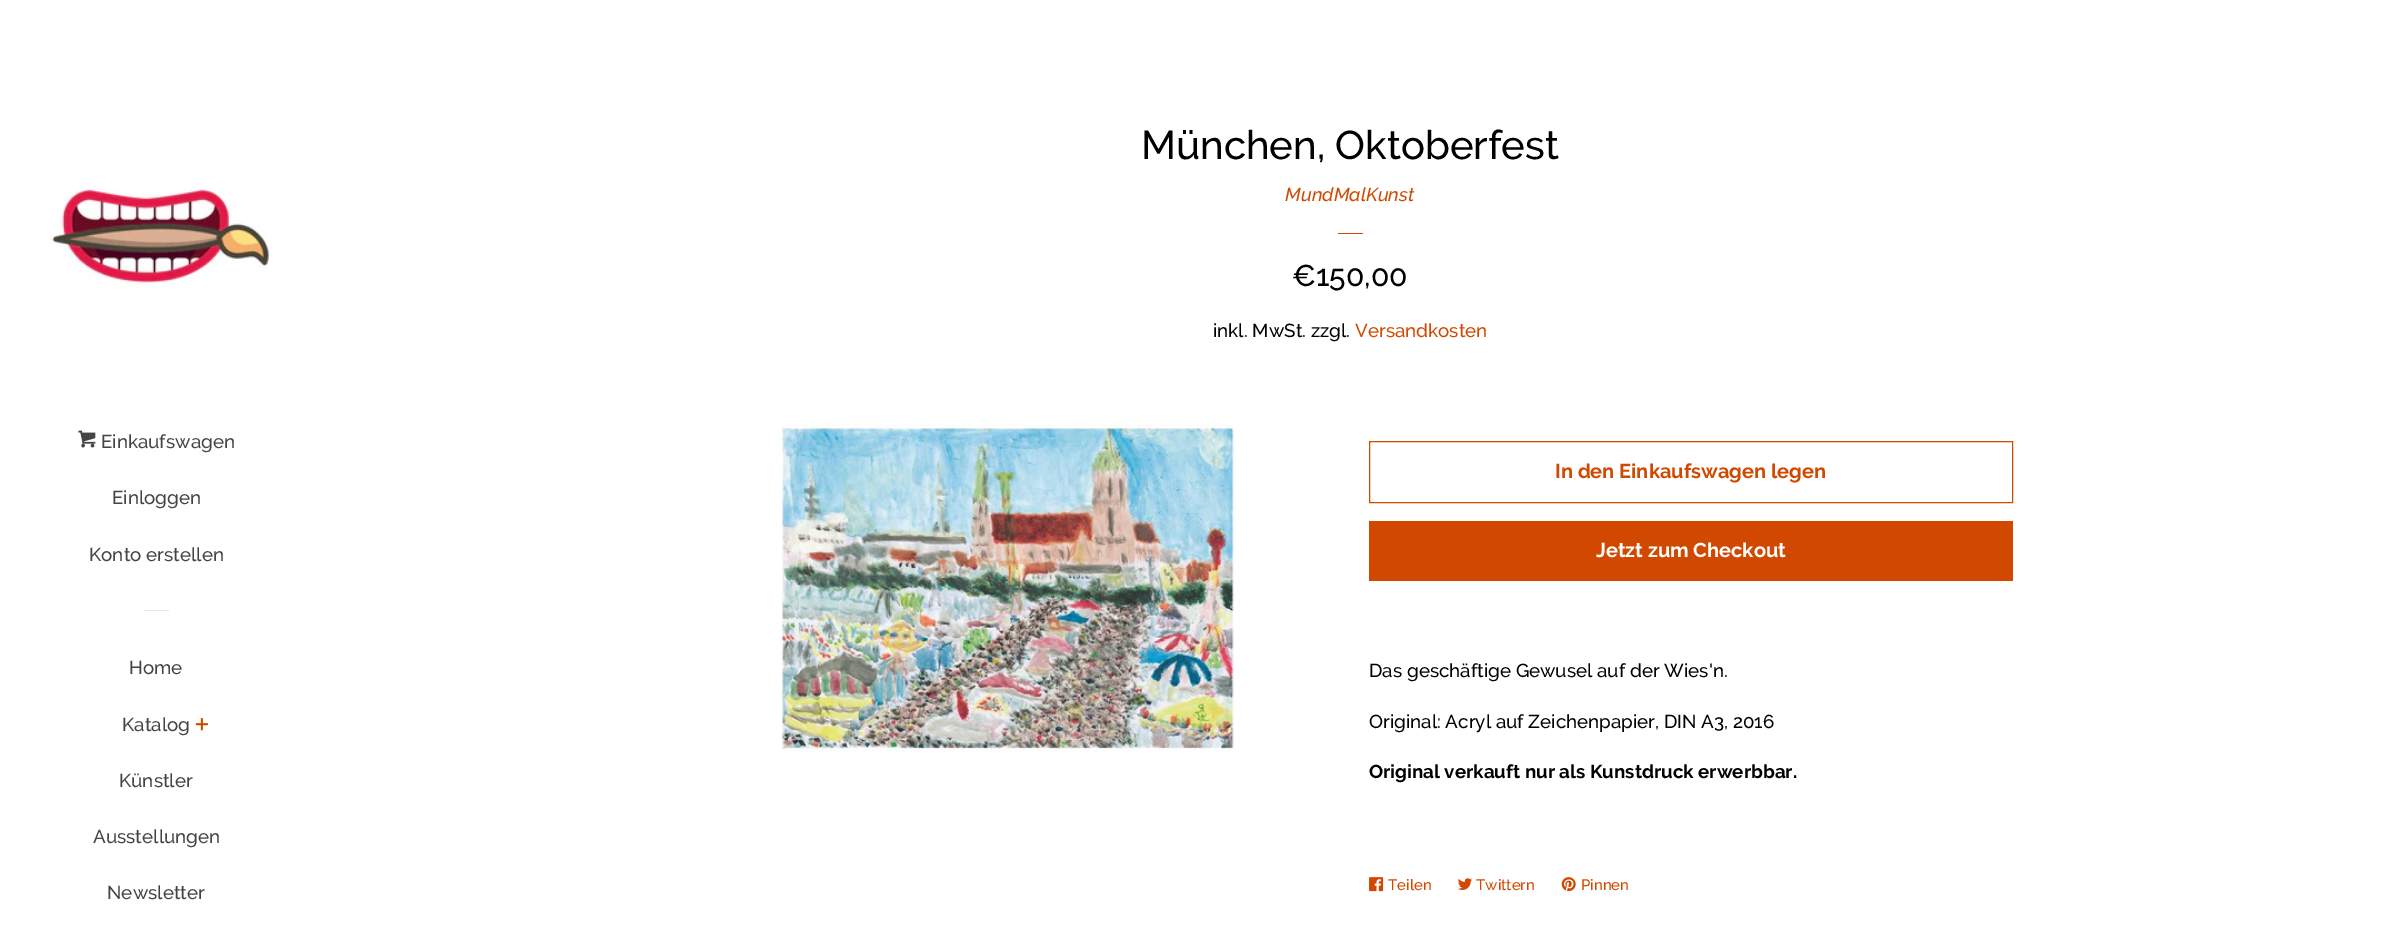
%!PS-Adobe-3.0
%%BoundingBox: 0 0 2387 952
%%LanguageLevel: 3
%%Pages: 1
%%EndComments
%%BeginProlog
/setink { 3 { 255 div 3 1 roll } repeat setrgbcolor } def
/usefont { [ exch dup neg 0 0 3 -1 roll 0 0 ] selectfont } def
/drawtext { setink usefont moveto show } def
/fillbox { setink rectfill } def
/drawimage { 5 dict begin { /h /w /y /x /name } { exch def } forall
  gsave x y translate w h scale
  w h 8 [w 0 0 h 0 0] name (r) file false 3 colorimage grestore end } def
%%EndProlog
%%BeginSetup
<< /PageSize [2387 952] >> setpagedevice
%%EndSetup
%%Page: 1 1
0 952 translate 1 -1 scale
4 setmiterlimit
0 0 2387 952 255 255 255 fillbox
(assets/img1.rgb) 50 188 219 101 drawimage
(assets/img2.rgb) 78 430 18 18 drawimage
(Einkaufswagen) 101 448 /Raleway-Medium 18.75 68 68 68 drawtext
(Einloggen) 112 504 /Raleway-Medium 18.75 68 68 68 drawtext
(Konto erstellen) 89 561 /Raleway-Medium 18.75 68 68 68 drawtext
144 610 25 1 230 230 230 fillbox
(Home) 129 674 /Raleway-Medium 18.75 68 68 68 drawtext
(Katalog) 122 731 /Raleway-Medium 18.75 68 68 68 drawtext
(assets/img3.rgb) 195 718 13 13 drawimage
(Künstler) 119 787 /Raleway-Medium 18.75 68 68 68 drawtext
(Ausstellungen) 93 843 /Raleway-Medium 18.75 68 68 68 drawtext
(Newsletter) 107 899 /Raleway-Medium 18.75 68 68 68 drawtext
(München, Oktoberfest) 1141 159 /Raleway-Medium 40 0 0 0 drawtext
(MundMalKunst) 1285 201 /Raleway-MediumItalic 18.75 209 72 0 drawtext
1338 233 25 1 209 72 0 fillbox
(€150,00) 1292 286 /Raleway-Medium 30 0 0 0 drawtext
(inkl. MwSt. zzgl.) 1213 337 /Raleway-Medium 18.75 0 0 0 drawtext
(Versandkosten) 1355 337 /Raleway-Medium 18.75 209 72 0 drawtext
(assets/img4.rgb) 780 422 455 330 drawimage
1369.5 441.5 643 61 rectstroke
(In den Einkaufswagen legen) 1555 478 /Raleway-Bold 20 209 72 0 drawtext
1369 521 644 60 209 72 0 fillbox
(Jetzt zum Checkout) 1596 557 /Raleway-Bold 20 255 255 255 drawtext
(Das geschäftige Gewusel auf der Wies'n.) 1369 677 /Raleway-Medium 18.75 0 0 0 drawtext
(Original: Acryl auf Zeichenpapier, DIN A3, 2016) 1369 728 /Raleway-Medium 18.75 0 0 0 drawtext
(Original verkauft nur als Kunstdruck erwerbbar.) 1369 778 /Raleway-Bold 18.75 0 0 0 drawtext
(assets/img5.rgb) 1369 877 15 15 drawimage
(Teilen) 1388 890 /Raleway-Medium 15 209 72 0 drawtext
(assets/img6.rgb) 1458 878 14 12 drawimage
(Twittern) 1476 890 /Raleway-Medium 15 209 72 0 drawtext
(assets/img7.rgb) 1561 877 15 15 drawimage
(Pinnen) 1581 890 /Raleway-Medium 15 209 72 0 drawtext
showpage
%%EOF
